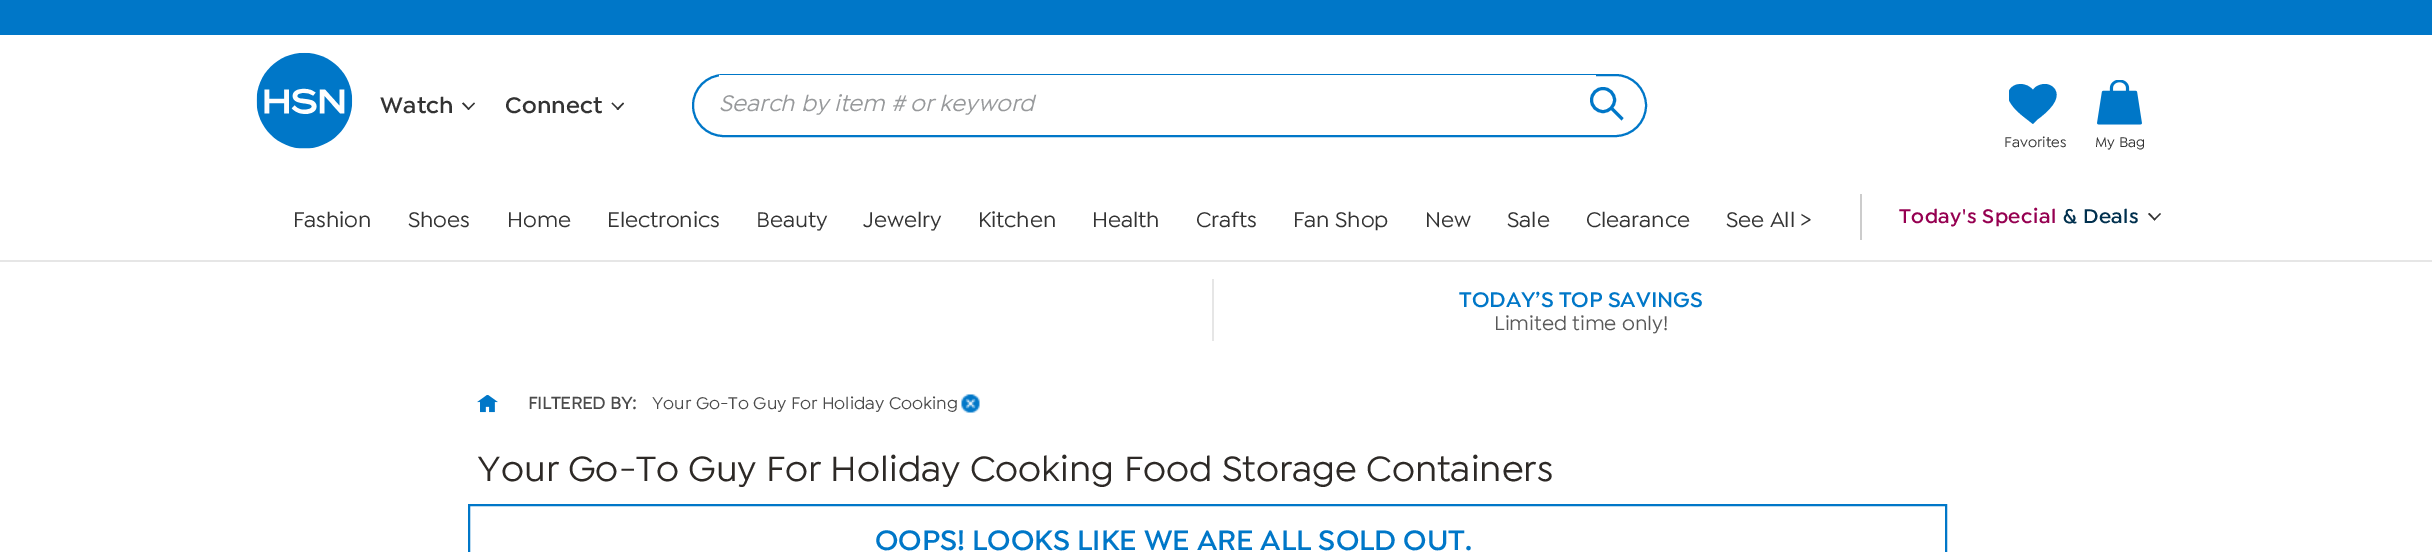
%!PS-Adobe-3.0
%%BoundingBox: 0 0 2432 552
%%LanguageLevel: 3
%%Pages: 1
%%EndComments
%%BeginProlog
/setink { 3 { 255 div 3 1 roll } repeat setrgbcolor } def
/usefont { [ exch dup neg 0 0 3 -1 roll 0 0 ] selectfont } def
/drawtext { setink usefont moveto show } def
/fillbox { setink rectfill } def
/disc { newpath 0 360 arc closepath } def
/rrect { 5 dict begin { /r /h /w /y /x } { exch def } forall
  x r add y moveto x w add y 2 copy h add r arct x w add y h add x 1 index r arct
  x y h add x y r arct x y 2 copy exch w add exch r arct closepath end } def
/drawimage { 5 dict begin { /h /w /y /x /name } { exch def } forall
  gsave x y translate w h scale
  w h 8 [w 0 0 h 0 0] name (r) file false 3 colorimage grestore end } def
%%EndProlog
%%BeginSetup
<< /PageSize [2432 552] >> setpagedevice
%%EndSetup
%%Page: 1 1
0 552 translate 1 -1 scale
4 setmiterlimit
0 0 2432 552 255 255 255 fillbox
0 0 2432 35 0 119 200 fillbox
(assets/img1.rgb) 256 52 97 97 drawimage
/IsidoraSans-SemiBold 24 usefont
51 51 51 setink
380 113 moveto 0.25 0 (Watch) ashow
474 102.5 moveto 475 103.5 lineto 468.5 110 lineto 467.5 109 lineto closepath fill
463.5 102.5 moveto 469.5 109 lineto 468.5 110 lineto 462 103.5 lineto closepath fill
505 113 moveto 0.25 0 (Connect) ashow
623 102.5 moveto 624 103.5 lineto 618 110 lineto 616.5 109 lineto closepath fill
612.5 102.5 moveto 619 109 lineto 618 110 lineto 611.5 103.5 lineto closepath fill
0 119 200 setink
2 setlinewidth
693 75 953 61 30.5 rrect stroke
719 75 877 2 255 255 255 fillbox
(Search by item # or keyword) 719 111 /IsidoraSans-MediumItalic 24 151 153 155 drawtext
0 119 200 setink
3 setlinewidth
1603 100 11.5 disc stroke
1613 107.5 moveto 1623.5 118 lineto 1621.5 120.5 lineto 1611 110 lineto closepath fill
gsave
2009 84 48 41 rectclip
2045 84 moveto 2041 84 2035 86 2033 90 curveto 2024 79 2004 84 2009 100 curveto 2012 107 2019 113 2024 117 curveto 2033 124 lineto 2038 119 lineto 2046 113 2063 99 2054 88 curveto 2052 86 2049 84 2045 84 curveto closepath eofill
grestore
(Favorites) 2004 147 /IsidoraSans-Medium 15 51 51 51 drawtext
(assets/img2.rgb) 2097 80 45 45 drawimage
(My Bag) 2095 147 /IsidoraSans-Medium 15 51 51 51 drawtext
/IsidoraSans-Medium 22.5 usefont
293 227 moveto -0.1 0 (Fashion) ashow
408 227 moveto -0.1 0 (Shoes) ashow
507 227 moveto -0.1 0 (Home) ashow
607 227 moveto -0.1 0 (Electronics) ashow
756 227 moveto -0.1 0 (Beauty) ashow
863 227 moveto -0.1 0 (Jewelry) ashow
978 227 moveto -0.1 0 (Kitchen) ashow
1092 227 moveto -0.1 0 (Health) ashow
1196 227 moveto -0.1 0 (Crafts) ashow
1293 227 moveto -0.1 0 (Fan Shop) ashow
1425 227 moveto -0.1 0 (New) ashow
1507 227 moveto -0.1 0 (Sale) ashow
1586 227 moveto -0.1 0 (Clearance) ashow
1726 227 moveto -0.1 0 (See All >) ashow
1860 194 2 46 204 204 204 fillbox
/IsidoraSans-SemiBold 21 usefont
150 0 81 setink
1899 223 moveto 0.5 0 (Today's Special) ashow
0 48 78 setink
2063 223 moveto 0.5 0 (& Deals) ashow
51 51 51 setink
2160 213 moveto 2161 214 lineto 2154.5 220.5 lineto 2153.5 219.5 lineto closepath fill
2149.5 213 moveto 2155.5 219.5 lineto 2154.5 220.5 lineto 2148 214 lineto closepath fill
0 260 2432 2 230 230 230 fillbox
1212 279 2 62 230 230 230 fillbox
(TODAY’S TOP SAVINGS) 1459 307 /IsidoraSans-SemiBold 22.5 0 119 200 drawtext
(Limited time only!) 1494 330 /IsidoraSans-Medium 21 89 89 89 drawtext
(assets/img3.rgb) 477 395 21 18 drawimage
(FILTERED BY:) 528 409 /IsidoraSans-Bold 18 75 75 75 drawtext
(assets/img4.rgb) 961 394 19 19 drawimage
(Your Go-To Guy For Holiday Cooking) 652 409 /IsidoraSans-Medium 18 75 75 75 drawtext
(Your Go-To Guy For Holiday Cooking Food Storage Containers) 477 481 /IsidoraSans-Medium 37.5 45 41 38 drawtext
0 119 200 setink
2 setlinewidth
469 505 1477 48 rectstroke
(OOPS! LOOKS LIKE WE ARE ALL SOLD OUT.) 875 550 /IsidoraSans-SemiBold 30 0 119 200 drawtext
showpage
%%EOF
